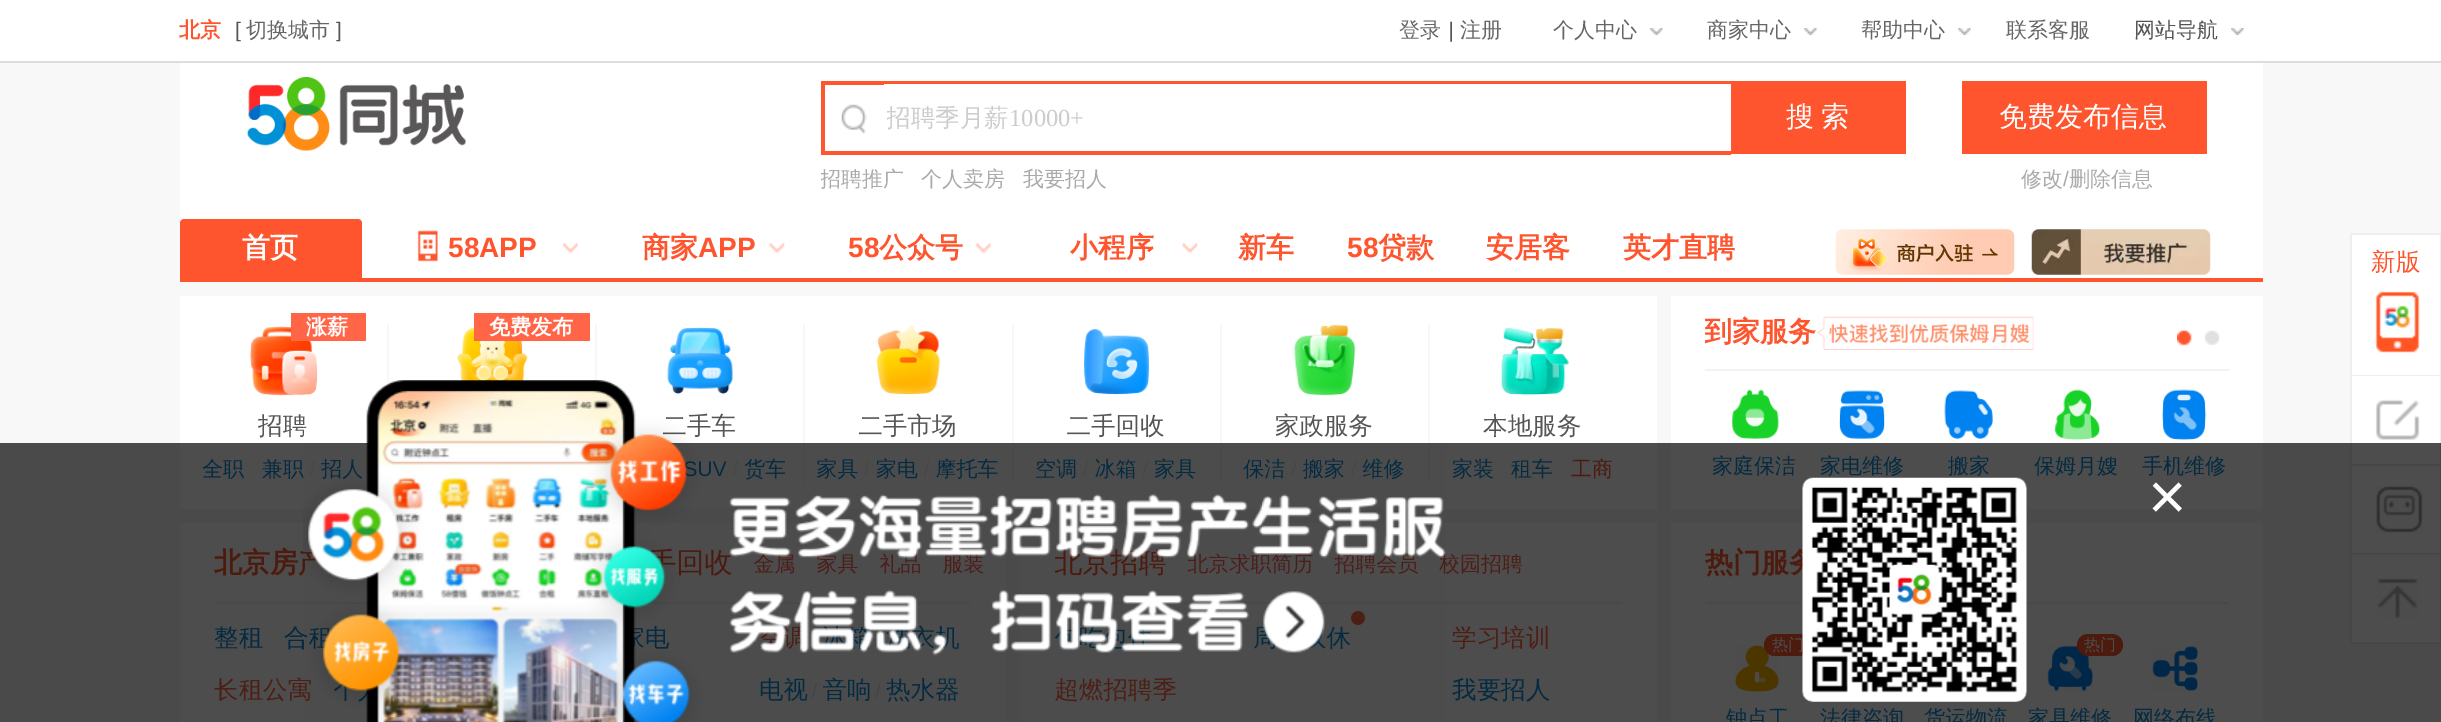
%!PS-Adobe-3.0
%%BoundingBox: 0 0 2441 722
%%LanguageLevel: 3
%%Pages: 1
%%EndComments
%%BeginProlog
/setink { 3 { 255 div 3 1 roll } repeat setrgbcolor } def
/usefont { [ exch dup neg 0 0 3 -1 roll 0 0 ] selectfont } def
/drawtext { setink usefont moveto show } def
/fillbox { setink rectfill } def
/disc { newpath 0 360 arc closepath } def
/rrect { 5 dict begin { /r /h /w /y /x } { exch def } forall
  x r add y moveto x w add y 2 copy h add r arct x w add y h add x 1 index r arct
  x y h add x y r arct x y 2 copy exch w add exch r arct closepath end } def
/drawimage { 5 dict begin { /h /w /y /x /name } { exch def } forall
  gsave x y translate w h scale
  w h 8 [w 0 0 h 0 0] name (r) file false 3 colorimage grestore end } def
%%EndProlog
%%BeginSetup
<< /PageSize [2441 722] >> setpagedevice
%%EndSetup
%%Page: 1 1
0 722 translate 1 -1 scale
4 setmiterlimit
0 0 2441 722 248 248 248 fillbox
0 443 2441 279 74 74 74 fillbox
0 0 2441 61 255 255 255 fillbox
0 61 2441 2 221 221 221 fillbox
(北京) 179 37 /WenQuanYiZenHei-Bold 21 255 85 46 drawtext
([) 235 37 /LiberationSans-Regular 21 85 85 85 drawtext
(切换城市) 246 37 /WenQuanYiZenHei-Medium 21 102 102 102 drawtext
(]) 336 37 /LiberationSans-Regular 21 85 85 85 drawtext
(登录) 1399 37 /WenQuanYiZenHei-Medium 21 102 102 102 drawtext
(|) 1448 37 /LiberationSans-Italic 21 85 85 85 drawtext
(注册) 1460 37 /WenQuanYiZenHei-Medium 21 102 102 102 drawtext
(个人中心) 1553 37 /WenQuanYiZenHei-Medium 21 102 102 102 drawtext
(assets/img1.rgb) 1650 28 13 7 drawimage
(商家中心) 1707 37 /WenQuanYiZenHei-Medium 21 102 102 102 drawtext
(assets/img1.rgb) 1804 28 13 7 drawimage
(帮助中心) 1861 37 /WenQuanYiZenHei-Medium 21 102 102 102 drawtext
(assets/img2.rgb) 1958 28 13 7 drawimage
(联系客服) 2006 37 /WenQuanYiZenHei-Medium 21 102 102 102 drawtext
(网站导航) 2134 37 /WenQuanYiZenHei-Medium 21 85 85 85 drawtext
(assets/img1.rgb) 2231 28 13 7 drawimage
180 63 2083 215 255 255 255 fillbox
(assets/img3.rgb) 247 77 219 74 drawimage
(assets/img4.rgb) 841 104 26 30 drawimage
821 81 910 4 255 85 46 fillbox
821 151 910 4 255 85 46 fillbox
821 81 4 73 255 85 46 fillbox
884 84 847 1 255 255 255 fillbox
gsave
887 86 844 65 rectclip
(招聘季月薪) 886 126 /WenQuanYiZenHei-Medium 24.5 204 204 204 drawtext
grestore
(10000+) 1009 126 /LiberationSerif-Regular 24.5 204 204 204 drawtext
1731 81 175 73 255 85 46 fillbox
(搜) 1786 126 /WenQuanYiZenHei-Medium 28 255 255 255 drawtext
(索) 1821 126 /WenQuanYiZenHei-Medium 28 255 255 255 drawtext
gsave
821 151 1085 56 rectclip
(招聘推广) 820 186 /WenQuanYiZenHei-Medium 21 170 170 170 drawtext
grestore
(个人卖房) 921 186 /WenQuanYiZenHei-Medium 21 170 170 170 drawtext
(我要招人) 1023 186 /WenQuanYiZenHei-Medium 21 170 170 170 drawtext
1962 81 245 73 255 85 46 fillbox
(免费发布信息) 1999 126 /WenQuanYiZenHei-Medium 28 255 255 255 drawtext
(修改) 2021 186 /WenQuanYiZenHei-Medium 21 170 170 170 drawtext
(/) 2063 186 /LiberationSans-Regular 21 170 170 170 drawtext
(删除信息) 2069 186 /WenQuanYiZenHei-Medium 21 170 170 170 drawtext
180 278 2083 4 255 85 46 fillbox
184 219 moveto 358 219 lineto 360 219 362 221 362 223 curveto 362 278 lineto 180 278 lineto 180 223 lineto 180 221 182 219 184 219 curveto closepath fill
(首页) 242 257 /WenQuanYiZenHei-Bold 28 255 255 255 drawtext
(assets/img5.rgb) 417 230 21 32 drawimage
(58APP) 448 257 /LiberationSans-Bold 28 255 85 46 drawtext
(assets/img6.rgb) 562 243 16 11 drawimage
(商家) 642 257 /WenQuanYiZenHei-Bold 28 255 85 46 drawtext
(APP) 698 257 /LiberationSans-Bold 28 255 85 46 drawtext
(assets/img7.rgb) 768 243 17 11 drawimage
(58) 848 257 /LiberationSans-Bold 28 255 85 46 drawtext
(公众号) 879 257 /WenQuanYiZenHei-Bold 28 255 85 46 drawtext
(assets/img6.rgb) 975 243 16 11 drawimage
(小程序) 1070 257 /WenQuanYiZenHei-Bold 28 255 85 46 drawtext
(assets/img7.rgb) 1181 243 17 11 drawimage
(新车) 1238 257 /WenQuanYiZenHei-Bold 28 255 85 46 drawtext
(58) 1347 257 /LiberationSans-Bold 28 255 85 46 drawtext
(贷款) 1378 257 /WenQuanYiZenHei-Bold 28 255 85 46 drawtext
(安居客) 1486 257 /WenQuanYiZenHei-Bold 28 255 85 46 drawtext
(英才直聘) 1623 257 /WenQuanYiZenHei-Bold 28 255 85 46 drawtext
(assets/img8.rgb) 1835 229 180 46 drawimage
(assets/img9.rgb) 2031 229 180 46 drawimage
2352 235 88 140 255 255 255 fillbox
2352 466 88 176 77 77 77 fillbox
2350 233 91 2 238 238 238 fillbox
2440 233 1 210 238 238 238 fillbox
2440 443 1 201 71 71 71 fillbox
2350 233 2 210 238 238 238 fillbox
2350 443 2 201 71 71 71 fillbox
2352 375 88 1 238 238 238 fillbox
(新版) 2371 270 /WenQuanYiZenHei-Medium 24.5 255 85 46 drawtext
(assets/img10.rgb) 2375 291 45 62 drawimage
2352 376 88 67 255 255 255 fillbox
2352 443 88 21 77 77 77 fillbox
2352 464 88 2 71 71 71 fillbox
(assets/img11.rgb) 2375 399 45 41 drawimage
2352 553 88 2 71 71 71 fillbox
(assets/img12.rgb) 2376 486 47 47 drawimage
2352 642 88 2 71 71 71 fillbox
(assets/img13.rgb) 2377 578 41 41 drawimage
180 296 1477 147 255 255 255 fillbox
180 443 1477 66 77 77 77 fillbox
387 324 2 64 248 248 248 fillbox
(assets/img14.rgb) 250 326 68 70 drawimage
291 313 75 28 255 101 70 fillbox
(涨薪) 306 334 /WenQuanYiZenHei-Bold 21 255 255 255 drawtext
(招聘) 258 434 /WenQuanYiZenHei-Medium 24.5 85 85 85 drawtext
(全职) 202 476 /WenQuanYiZenHei-Medium 21 4 43 65 drawtext
(兼职) 262 476 /WenQuanYiZenHei-Medium 21 4 43 65 drawtext
(招人) 321 476 /WenQuanYiZenHei-Medium 21 4 43 65 drawtext
595 324 2 58 248 248 248 fillbox
(assets/img15.rgb) 457 327 71 55 drawimage
474 313 116 28 255 101 70 fillbox
(免费发布) 489 334 /WenQuanYiZenHei-Bold 21 255 255 255 drawtext
803 324 2 119 248 248 248 fillbox
803 443 2 42 74 74 74 fillbox
(assets/img16.rgb) 667 327 66 68 drawimage
(二手车) 662 434 /WenQuanYiZenHei-Medium 24.5 85 85 85 drawtext
(SUV) 683 476 /LiberationSans-Regular 21 4 43 65 drawtext
(货车) 744 476 /WenQuanYiZenHei-Medium 21 4 43 65 drawtext
1012 324 2 119 248 248 248 fillbox
1012 443 2 42 74 74 74 fillbox
(assets/img17.rgb) 876 325 64 70 drawimage
(二手市场) 858 434 /WenQuanYiZenHei-Medium 24.5 85 85 85 drawtext
(家具) 816 476 /WenQuanYiZenHei-Medium 21 4 43 65 drawtext
(家电) 876 476 /WenQuanYiZenHei-Medium 21 4 43 65 drawtext
(摩托车) 935 476 /WenQuanYiZenHei-Medium 21 4 43 65 drawtext
1220 324 2 119 248 248 248 fillbox
1220 443 2 42 74 74 74 fillbox
(assets/img18.rgb) 1084 329 65 66 drawimage
(二手回收) 1067 434 /WenQuanYiZenHei-Medium 24.5 85 85 85 drawtext
(空调) 1035 476 /WenQuanYiZenHei-Medium 21 4 43 65 drawtext
(冰箱) 1095 476 /WenQuanYiZenHei-Medium 21 4 43 65 drawtext
(家具) 1154 476 /WenQuanYiZenHei-Medium 21 4 43 65 drawtext
1428 324 2 119 248 248 248 fillbox
1428 443 2 42 74 74 74 fillbox
(assets/img19.rgb) 1294 324 62 72 drawimage
(家政服务) 1275 434 /WenQuanYiZenHei-Medium 24.5 85 85 85 drawtext
(保洁) 1243 476 /WenQuanYiZenHei-Medium 21 4 43 65 drawtext
(搬家) 1303 476 /WenQuanYiZenHei-Medium 21 4 43 65 drawtext
(维修) 1362 476 /WenQuanYiZenHei-Medium 21 4 43 65 drawtext
(assets/img20.rgb) 1501 327 68 69 drawimage
(本地服务) 1483 434 /WenQuanYiZenHei-Medium 24.5 85 85 85 drawtext
(家装) 1452 476 /WenQuanYiZenHei-Medium 21 4 43 65 drawtext
(租车) 1511 476 /WenQuanYiZenHei-Medium 21 4 43 65 drawtext
(工商) 1571 476 /WenQuanYiZenHei-Medium 21 77 26 14 drawtext
180 523 189 199 77 77 77 fillbox
215 602 154 2 73 73 73 fillbox
(北京房产) 214 572 /WenQuanYiZenHei-Bold 28 77 26 14 drawtext
(整租) 214 646 /WenQuanYiZenHei-Medium 24.5 4 43 65 drawtext
(合租) 284 646 /WenQuanYiZenHei-Medium 24.5 4 43 65 drawtext
(长租公寓) 214 698 /WenQuanYiZenHei-Medium 24.5 77 30 21 drawtext
633 523 373 199 77 77 77 fillbox
642 602 329 2 73 73 73 fillbox
(手回收) 648 572 /WenQuanYiZenHei-Bold 28 77 26 14 drawtext
(金属) 753 571 /WenQuanYiZenHei-Medium 21 77 30 21 drawtext
(家具) 816 571 /WenQuanYiZenHei-Medium 21 77 30 21 drawtext
(礼品) 879 571 /WenQuanYiZenHei-Medium 21 77 30 21 drawtext
(服装) 942 571 /WenQuanYiZenHei-Medium 21 77 30 21 drawtext
(电) 645 646 /WenQuanYiZenHei-Medium 24.5 4 43 65 drawtext
(洗衣机) 886 646 /WenQuanYiZenHei-Medium 24.5 4 43 65 drawtext
(电视) 759 698 /WenQuanYiZenHei-Medium 24.5 4 43 65 drawtext
(音响) 823 698 /WenQuanYiZenHei-Medium 24.5 4 43 65 drawtext
(热水器) 886 698 /WenQuanYiZenHei-Medium 24.5 4 43 65 drawtext
1020 523 637 199 77 77 77 fillbox
1055 602 567 2 73 73 73 fillbox
(北京招聘) 1054 572 /WenQuanYiZenHei-Bold 28 77 26 14 drawtext
(北京求职简历) 1187 571 /WenQuanYiZenHei-Medium 21 77 30 21 drawtext
(招聘会员) 1334 571 /WenQuanYiZenHei-Medium 21 77 30 21 drawtext
(校园招聘) 1439 571 /WenQuanYiZenHei-Medium 21 77 30 21 drawtext
1358 618 7 disc fill
(周) 1253 646 /WenQuanYiZenHei-Medium 24.5 4 43 65 drawtext
(休) 1327 646 /WenQuanYiZenHei-Medium 24.5 4 43 65 drawtext
(学习培训) 1452 646 /WenQuanYiZenHei-Medium 24.5 77 30 21 drawtext
(超燃招聘季) 1054 698 /WenQuanYiZenHei-Medium 24.5 77 30 21 drawtext
(我要招人) 1452 698 /WenQuanYiZenHei-Medium 24.5 4 43 65 drawtext
1671 296 592 147 255 255 255 fillbox
1671 443 592 66 77 77 77 fillbox
1705 369 525 2 243 243 243 fillbox
gsave
1705 296 525 187 rectclip
(到家服务) 1704 341 /WenQuanYiZenHei-Bold 28 255 85 46 drawtext
grestore
(assets/img21.rgb) 1817 316 217 34 drawimage
(assets/img22.rgb) 2177 330 15 16 drawimage
(assets/img23.rgb) 2205 330 15 15 drawimage
(assets/img24.rgb) 1732 389 47 50 drawimage
(家庭保洁) 1712 473 /WenQuanYiZenHei-Medium 21 4 43 65 drawtext
(assets/img25.rgb) 1839 390 46 49 drawimage
(家电维修) 1820 473 /WenQuanYiZenHei-Medium 21 4 43 65 drawtext
(assets/img26.rgb) 1944 390 49 49 drawimage
(搬家) 1948 473 /WenQuanYiZenHei-Medium 21 4 43 65 drawtext
(assets/img27.rgb) 2054 389 46 51 drawimage
(保姆月嫂) 2034 473 /WenQuanYiZenHei-Medium 21 4 43 65 drawtext
(assets/img28.rgb) 2162 389 45 51 drawimage
(手机维修) 2142 473 /WenQuanYiZenHei-Medium 21 4 43 65 drawtext
1671 523 592 199 77 77 77 fillbox
1706 602 522 2 73 73 73 fillbox
(热门服务) 1705 572 /WenQuanYiZenHei-Bold 28 77 26 14 drawtext
(assets/img29.rgb) 1735 645 44 47 drawimage
1764 634 46 22 11 rrect fill
(热门) 1772 650 /WenQuanYiZenHei-Medium 16 77 77 77 drawtext
(钟点工) 1726 725 /WenQuanYiZenHei-Medium 21 4 43 65 drawtext
(法律咨询) 1820 725 /WenQuanYiZenHei-Medium 21 4 43 65 drawtext
(货运物流) 1924 725 /WenQuanYiZenHei-Medium 21 4 43 65 drawtext
(assets/img30.rgb) 2047 645 46 47 drawimage
77 26 14 setink
2077 634 46 22 11 rrect fill
(热门) 2084 650 /WenQuanYiZenHei-Medium 16 77 77 77 drawtext
(家具维修) 2028 725 /WenQuanYiZenHei-Medium 21 4 43 65 drawtext
(assets/img31.rgb) 2152 646 46 45 drawimage
(网络布线) 2133 725 /WenQuanYiZenHei-Medium 21 4 43 65 drawtext
(assets/img32.rgb) 303 380 1143 342 drawimage
(assets/img33.rgb) 1802 477 225 225 drawimage
(×) 2148 519 /LiberationSans-Regular 66 255 255 255 drawtext
showpage
%%EOF
